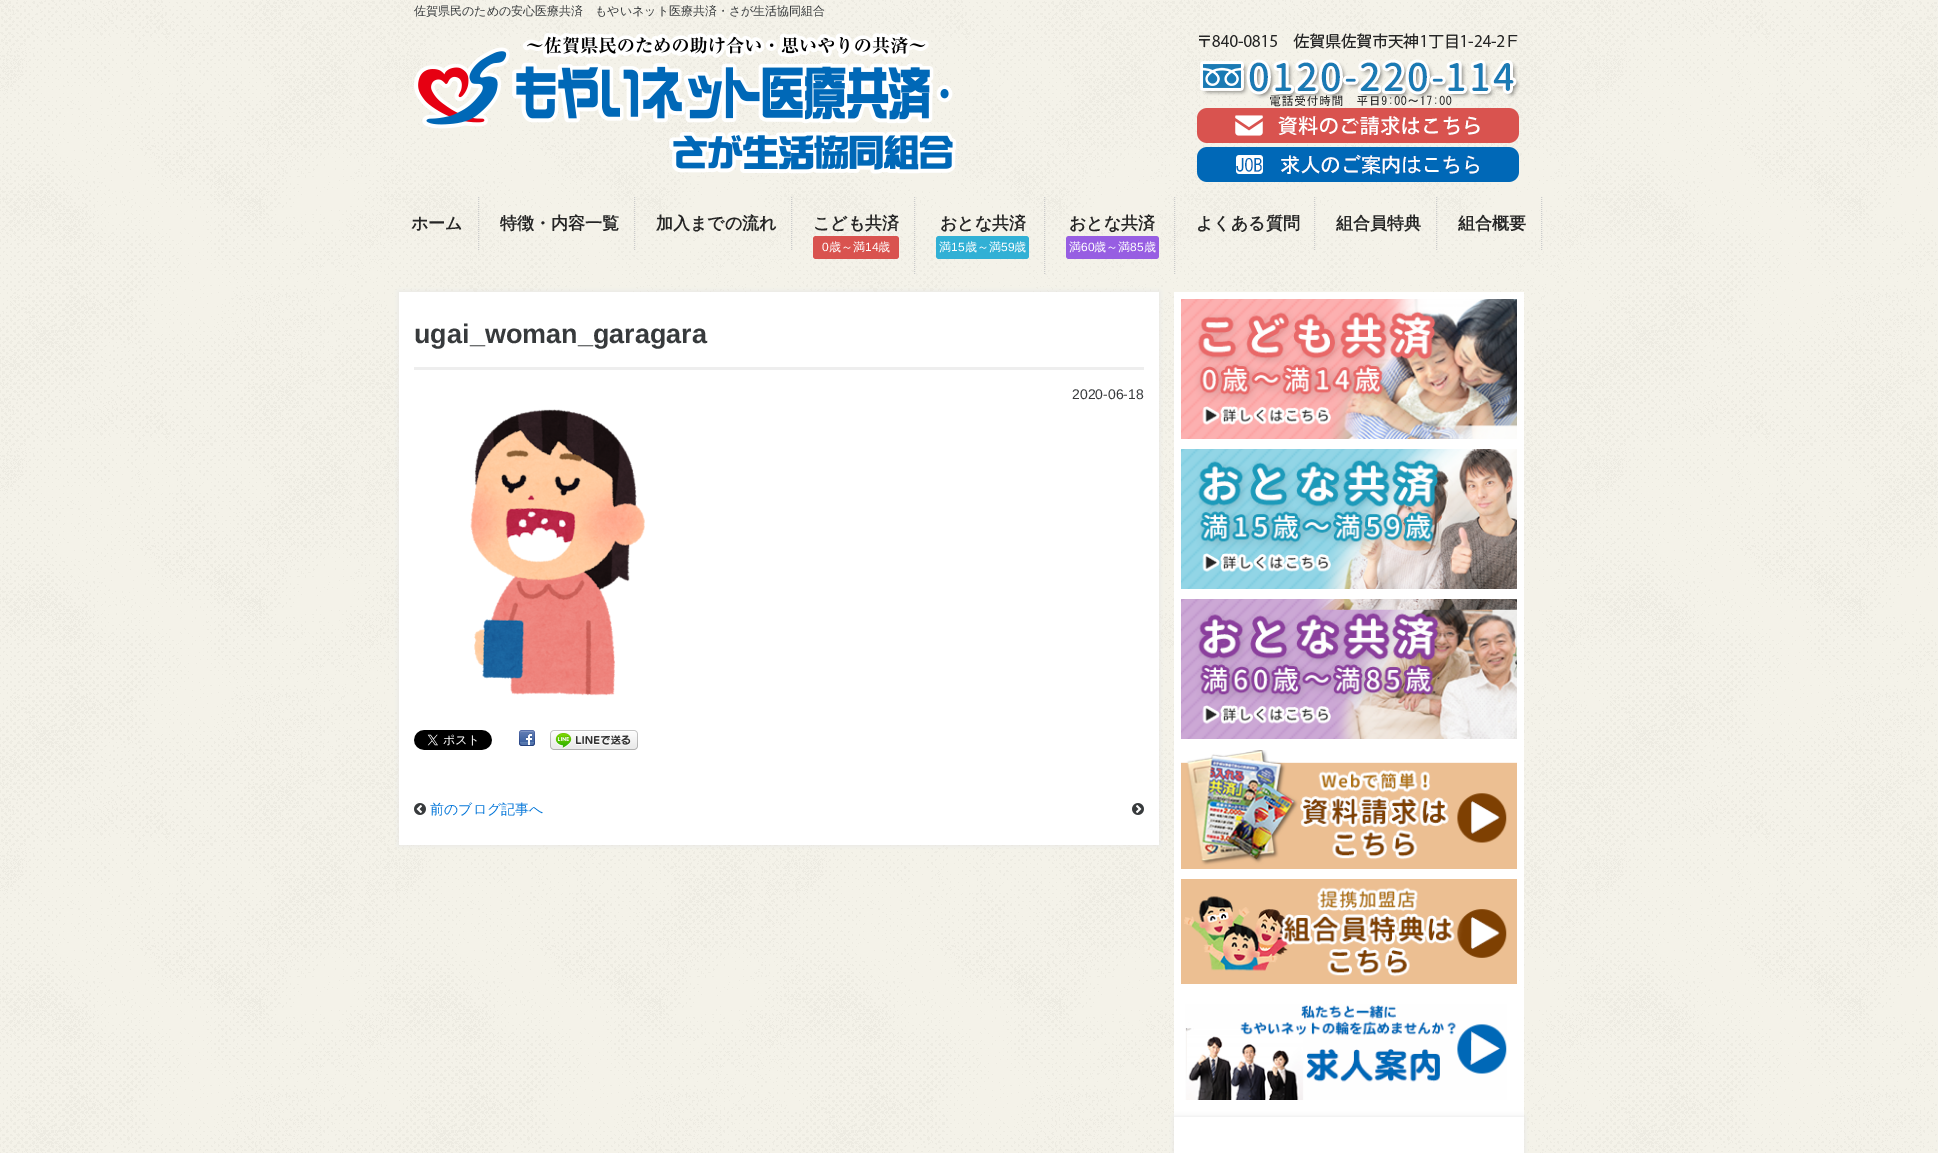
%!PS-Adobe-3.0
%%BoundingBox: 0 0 1938 1153
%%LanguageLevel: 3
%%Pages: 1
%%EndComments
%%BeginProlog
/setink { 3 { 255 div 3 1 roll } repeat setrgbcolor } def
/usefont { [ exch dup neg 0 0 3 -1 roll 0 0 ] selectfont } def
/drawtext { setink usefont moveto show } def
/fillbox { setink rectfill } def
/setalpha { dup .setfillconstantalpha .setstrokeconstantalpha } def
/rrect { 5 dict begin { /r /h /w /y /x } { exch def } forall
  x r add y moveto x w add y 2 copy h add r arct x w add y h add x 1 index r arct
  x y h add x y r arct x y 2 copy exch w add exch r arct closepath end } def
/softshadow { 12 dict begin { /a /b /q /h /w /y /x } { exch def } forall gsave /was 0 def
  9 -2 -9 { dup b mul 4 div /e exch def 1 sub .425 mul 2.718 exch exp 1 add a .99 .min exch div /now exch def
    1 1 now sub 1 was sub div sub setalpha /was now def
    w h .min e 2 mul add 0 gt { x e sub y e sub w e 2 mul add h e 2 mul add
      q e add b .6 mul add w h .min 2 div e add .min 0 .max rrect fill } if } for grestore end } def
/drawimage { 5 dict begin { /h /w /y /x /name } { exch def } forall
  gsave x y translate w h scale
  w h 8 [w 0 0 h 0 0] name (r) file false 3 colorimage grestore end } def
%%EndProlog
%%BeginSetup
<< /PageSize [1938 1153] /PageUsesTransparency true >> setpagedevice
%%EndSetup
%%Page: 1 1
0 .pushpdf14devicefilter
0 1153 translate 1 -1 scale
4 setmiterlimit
0 0 1938 1153 255 255 255 fillbox
(assets/img1.rgb) 0 0 1938 1153 drawimage
(佐賀県民のための安心医療共済　もやいネット医療共済・さが生活協同組合) 414 15 /WenQuanYiZenHei-Medium 12 55 58 60 drawtext
(assets/img2.rgb) 414 33 542 141 drawimage
(assets/img3.rgb) 1197 33 323 110 drawimage
(assets/img4.rgb) 1197 147 322 35 drawimage
204 204 204 setink
[1 1] 0 setdash
478.5 197 moveto 478.5 251 lineto stroke
(ホーム) 411 229 /WenQuanYiZenHei-Bold 17 37 37 37 drawtext
204 204 204 setink
634.5 197 moveto 634.5 251 lineto stroke
(特徴・内容一覧) 500 229 /WenQuanYiZenHei-Bold 17 37 37 37 drawtext
204 204 204 setink
791.5 197 moveto 791.5 251 lineto stroke
(加入までの流れ) 656 229 /WenQuanYiZenHei-Bold 17 37 37 37 drawtext
204 204 204 setink
914.5 197 moveto 914.5 274 lineto stroke
(こども共済) 813 229 /WenQuanYiZenHei-Bold 17 37 37 37 drawtext
217 83 79 setink
813 236 86 23 3 rrect fill
(0) 822 251 /LiberationSans-Regular 12 255 255 255 drawtext
(歳～満) 829 251 /WenQuanYiZenHei-Medium 12 255 255 255 drawtext
(14) 865 251 /LiberationSans-Regular 12 255 255 255 drawtext
(歳) 878 251 /WenQuanYiZenHei-Medium 12 255 255 255 drawtext
204 204 204 setink
1044.5 197 moveto 1044.5 274 lineto stroke
(おとな共済) 940 229 /WenQuanYiZenHei-Bold 17 37 37 37 drawtext
49 176 213 setink
936 236 93 23 3 rrect fill
(満) 939 251 /WenQuanYiZenHei-Medium 12 255 255 255 drawtext
(15) 951 251 /LiberationSans-Regular 12 255 255 255 drawtext
(歳～満) 965 251 /WenQuanYiZenHei-Medium 12 255 255 255 drawtext
(59) 1001 251 /LiberationSans-Regular 12 255 255 255 drawtext
(歳) 1014 251 /WenQuanYiZenHei-Medium 12 255 255 255 drawtext
204 204 204 setink
1174.5 197 moveto 1174.5 274 lineto stroke
(おとな共済) 1069 229 /WenQuanYiZenHei-Bold 17 37 37 37 drawtext
151 94 226 setink
1066 236 93 23 3 rrect fill
(満) 1069 251 /WenQuanYiZenHei-Medium 12 255 255 255 drawtext
(60) 1081 251 /LiberationSans-Regular 12 255 255 255 drawtext
(歳～満) 1094 251 /WenQuanYiZenHei-Medium 12 255 255 255 drawtext
(85) 1130 251 /LiberationSans-Regular 12 255 255 255 drawtext
(歳) 1144 251 /WenQuanYiZenHei-Medium 12 255 255 255 drawtext
204 204 204 setink
1314.5 197 moveto 1314.5 251 lineto stroke
(よくある質問) 1196 229 /WenQuanYiZenHei-Bold 17 37 37 37 drawtext
204 204 204 setink
1436.5 197 moveto 1436.5 251 lineto stroke
(組合員特典) 1336 229 /WenQuanYiZenHei-Bold 17 37 37 37 drawtext
204 204 204 setink
1541.5 197 moveto 1541.5 251 lineto stroke
(組合概要) 1458 229 /WenQuanYiZenHei-Bold 17 37 37 37 drawtext
228 228 228 setink
399 292 760 553 0 2.5 1 softshadow
399 292 760 553 255 255 255 fillbox
414 367 730 3 238 238 238 fillbox
(ugai_woman_garagara) 414 343 /LiberationSans-Bold 27 55 58 60 drawtext
(2020-06-18) 1072 399 /LiberationSans-Regular 14 55 58 60 drawtext
(assets/img5.rgb) 470 409 175 287 drawimage
(assets/img6.rgb) 414 730 78 20 drawimage
(assets/img7.rgb) 519 730 16 16 drawimage
(assets/img8.rgb) 550 730 88 20 drawimage
(assets/img9.rgb) 414 803 12 12 drawimage
(前のブログ記事へ) 430 814 /WenQuanYiZenHei-Medium 14 2 117 216 drawtext
(assets/img10.rgb) 1132 803 12 12 drawimage
1174 292 350 825 255 255 255 fillbox
(assets/img11.rgb) 1181 299 336 140 drawimage
(assets/img12.rgb) 1181 449 336 140 drawimage
(assets/img13.rgb) 1181 599 336 140 drawimage
(assets/img14.rgb) 1181 750 336 119 drawimage
(assets/img15.rgb) 1181 879 336 105 drawimage
(assets/img16.rgb) 1185 1004 322 96 drawimage
228 228 228 setink
1174 1117 350 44 0 2.5 1 softshadow
1174 1117 350 36 255 255 255 fillbox
.poppdf14devicefilter showpage
%%EOF
